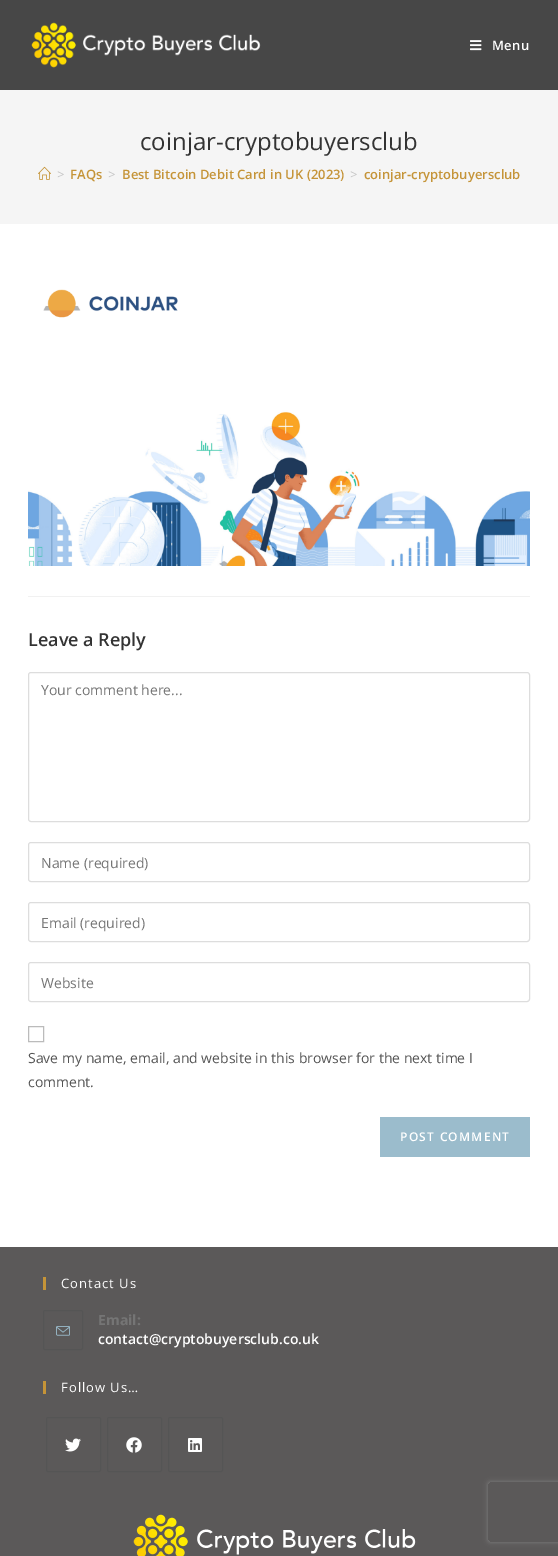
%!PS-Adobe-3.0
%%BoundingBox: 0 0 558 1556
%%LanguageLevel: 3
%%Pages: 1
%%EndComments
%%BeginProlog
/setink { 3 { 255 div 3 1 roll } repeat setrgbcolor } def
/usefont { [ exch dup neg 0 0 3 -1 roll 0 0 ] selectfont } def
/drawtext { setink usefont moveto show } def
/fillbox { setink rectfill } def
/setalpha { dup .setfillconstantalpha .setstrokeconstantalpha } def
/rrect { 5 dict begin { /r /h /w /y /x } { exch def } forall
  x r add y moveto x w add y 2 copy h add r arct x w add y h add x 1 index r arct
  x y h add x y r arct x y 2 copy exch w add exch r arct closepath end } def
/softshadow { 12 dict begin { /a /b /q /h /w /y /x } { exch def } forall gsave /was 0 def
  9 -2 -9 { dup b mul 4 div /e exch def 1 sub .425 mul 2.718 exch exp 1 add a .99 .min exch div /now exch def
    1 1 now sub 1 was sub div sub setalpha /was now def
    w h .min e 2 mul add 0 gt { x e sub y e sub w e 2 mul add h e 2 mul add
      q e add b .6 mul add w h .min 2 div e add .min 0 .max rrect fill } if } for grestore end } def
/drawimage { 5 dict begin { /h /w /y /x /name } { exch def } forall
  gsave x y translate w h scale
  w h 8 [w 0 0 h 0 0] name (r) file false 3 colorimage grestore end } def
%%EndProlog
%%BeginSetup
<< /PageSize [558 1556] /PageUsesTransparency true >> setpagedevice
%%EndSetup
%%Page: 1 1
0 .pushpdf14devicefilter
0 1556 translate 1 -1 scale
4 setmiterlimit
0 0 558 1556 255 255 255 fillbox
0 0 558 90 71 71 71 fillbox
(assets/img1.rgb) 31 22 230 46 drawimage
(assets/img2.rgb) 470 40 12 11 drawimage
/OpenSans-SemiBold 13 usefont
255 255 255 setink
492 50 moveto 0.5 0 (Menu) ashow
0 90 558 134 245 245 245 fillbox
(coinjar-cryptobuyersclub) 140 150 /OpenSans-Regular 24 51 51 51 drawtext
(assets/img3.rgb) 38 166 13 14 drawimage
(>) 57 179 /OpenSans-Regular 13 198 198 198 drawtext
(FAQs) 70 179 /OpenSans-SemiBold 13 197 148 56 drawtext
(>) 108 179 /OpenSans-Regular 13 198 198 198 drawtext
(Best Bitcoin Debit Card in UK \(2023\)) 122 179 /OpenSans-SemiBold 13 197 148 56 drawtext
(>) 350 179 /OpenSans-Regular 13 198 198 198 drawtext
(coinjar-cryptobuyersclub) 364 179 /OpenSans-SemiBold 13 197 148 56 drawtext
(assets/img4.rgb) 28 289 502 277 drawimage
28 596 502 1 241 241 241 fillbox
(Leave a Reply) 28 646 /OpenSans-SemiBold 18 51 51 51 drawtext
221 221 221 setink
28.5 672.5 501 149 2.5 rrect stroke
(Your comment here...) 41 695 /OpenSans-Regular 14 117 117 117 drawtext
221 221 221 setink
28.5 842.5 501 39 2.5 rrect stroke
(Name \(required\)) 41 868 /OpenSans-Regular 14 117 117 117 drawtext
221 221 221 setink
28.5 902.5 501 39 2.5 rrect stroke
(Email \(required\)) 41 928 /OpenSans-Regular 14 117 117 117 drawtext
221 221 221 setink
28.5 962.5 501 39 2.5 rrect stroke
(Website) 41 988 /OpenSans-Regular 14 117 117 117 drawtext
187 187 187 setink
28.5 1026.5 15 15 rectstroke
(Save my name, email, and website in this browser for the next time I) 28 1063 /OpenSans-Regular 14 84 84 84 drawtext
(comment.) 28 1087 /OpenSans-Regular 14 84 84 84 drawtext
380 1117 150 40 155 188 204 fillbox
/OpenSans-SemiBold 12 usefont
255 255 255 setink
400 1141 moveto 1.25 0 (POST COMMENT) ashow
0 1247 558 309 91 89 89 fillbox
43 1277 3 13 197 148 56 fillbox
/OpenSans-Regular 13 usefont
255 255 255 setink
61 1288 moveto 1 0 (Contact Us) ashow
85 85 85 setink
43.5 1310.5 39 39 1.5 rrect stroke
(assets/img5.rgb) 56 1326 14 10 drawimage
(Email:) 98 1325 /OpenSans-Bold 14 117 117 117 drawtext
(contact@cryptobuyersclub.co.uk) 98 1344 /OpenSans-SemiBold 14 255 255 255 drawtext
43 1381 3 13 197 148 56 fillbox
/OpenSans-Regular 13 usefont
255 255 255 setink
61 1392 moveto 1 0 (Follow Us…) ashow
85 85 85 setink
46.5 1417.5 54 54 1.5 rrect stroke
(assets/img6.rgb) 65 1438 16 14 drawimage
107.5 1417.5 54 54 1.5 rrect stroke
(assets/img7.rgb) 126 1437 16 16 drawimage
168.5 1417.5 54 54 1.5 rrect stroke
(assets/img8.rgb) 188 1438 14 14 drawimage
(assets/img9.rgb) 133 1514 283 42 drawimage
gsave
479 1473 moveto 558 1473 lineto 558 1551 lineto 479 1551 lineto closepath 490 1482 moveto 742 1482 lineto 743 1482 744 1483 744 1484 curveto 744 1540 lineto 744 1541 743 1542 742 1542 curveto 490 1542 lineto 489 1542 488 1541 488 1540 curveto 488 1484 lineto 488 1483 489 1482 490 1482 curveto closepath eoclip newpath
128 128 128 setink
488 1482 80 60 2 2.5 1 softshadow
grestore
.poppdf14devicefilter showpage
%%EOF
